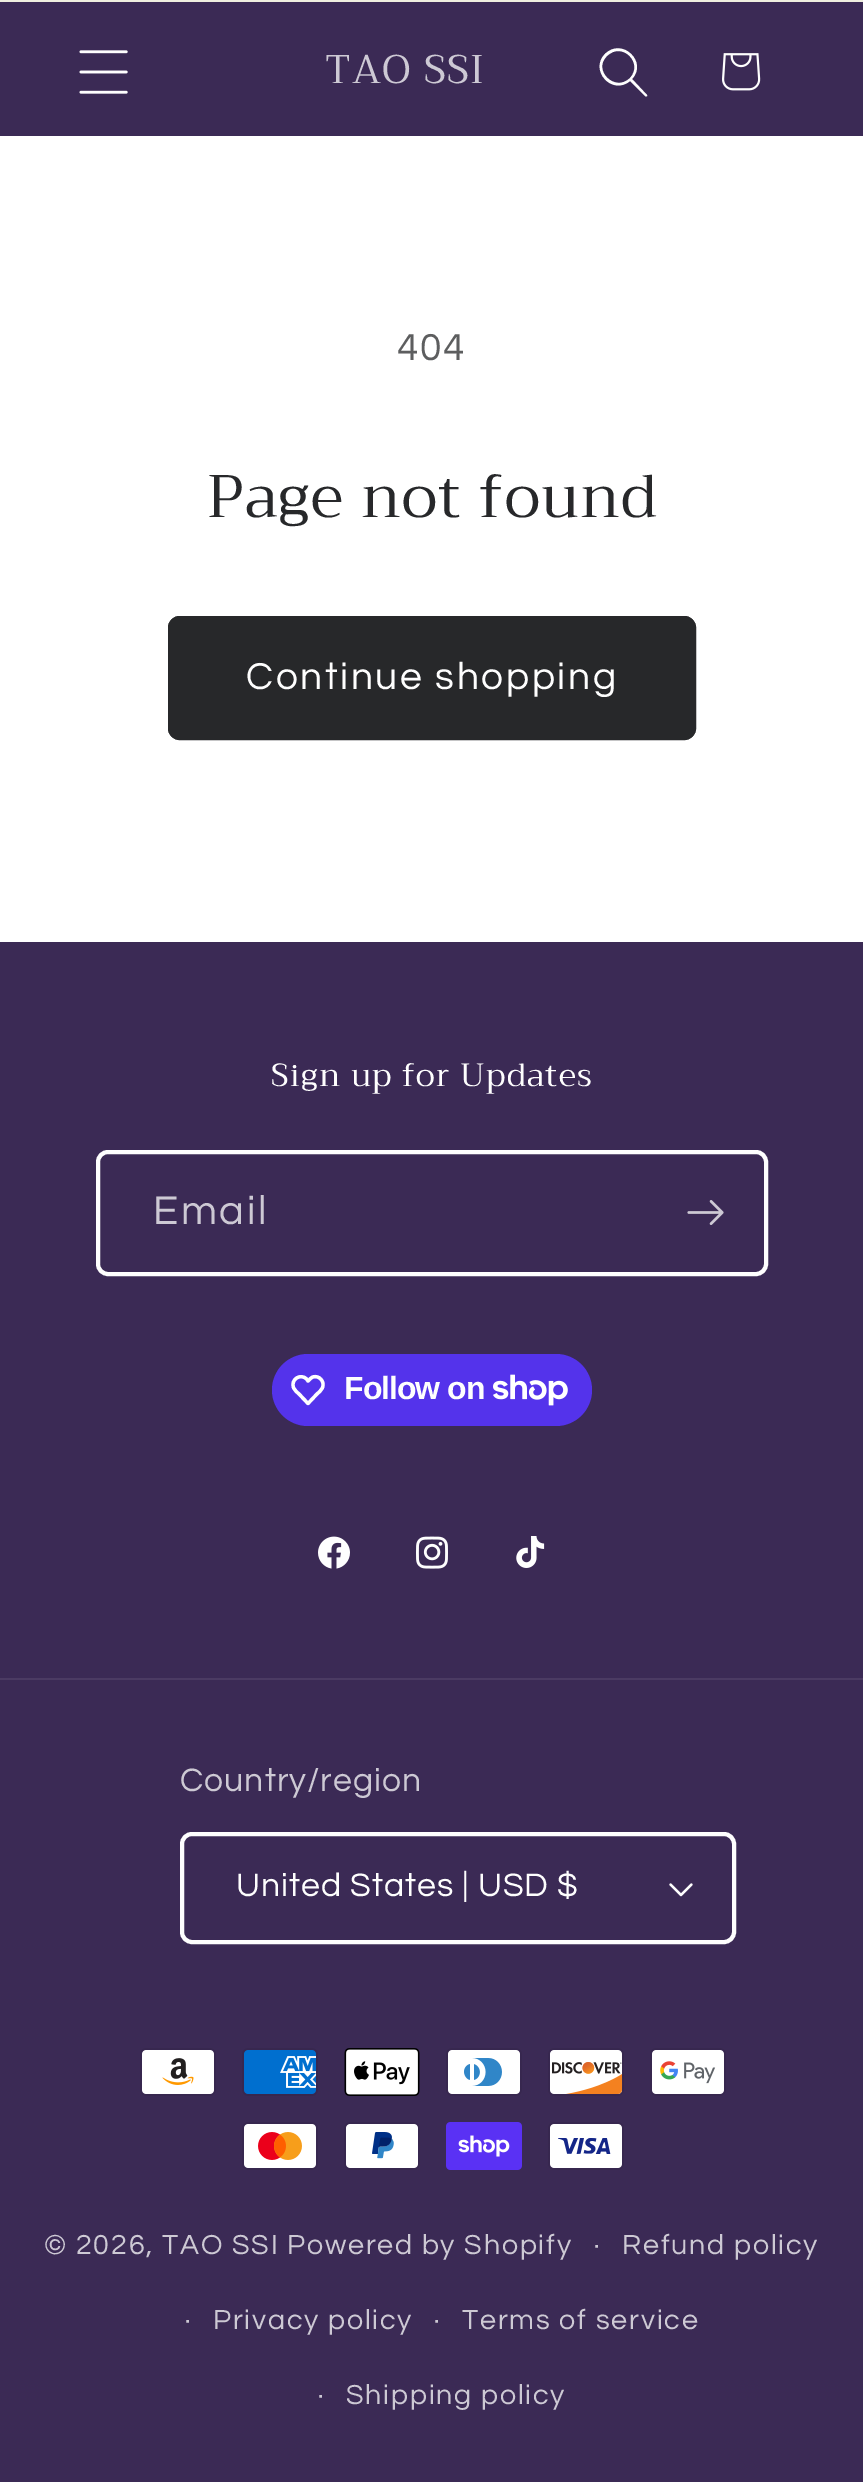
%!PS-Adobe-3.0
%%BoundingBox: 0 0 863 2482
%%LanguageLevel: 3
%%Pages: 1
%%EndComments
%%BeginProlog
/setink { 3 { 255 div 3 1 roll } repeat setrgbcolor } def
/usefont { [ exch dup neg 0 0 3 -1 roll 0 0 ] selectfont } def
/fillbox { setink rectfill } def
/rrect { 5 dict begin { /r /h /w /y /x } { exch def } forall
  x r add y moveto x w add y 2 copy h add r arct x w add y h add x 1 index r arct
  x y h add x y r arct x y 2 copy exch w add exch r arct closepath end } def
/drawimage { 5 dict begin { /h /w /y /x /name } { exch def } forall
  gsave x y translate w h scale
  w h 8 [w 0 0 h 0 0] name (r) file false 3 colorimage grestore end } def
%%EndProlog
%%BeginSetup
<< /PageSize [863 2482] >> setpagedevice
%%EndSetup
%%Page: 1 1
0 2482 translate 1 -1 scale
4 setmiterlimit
0 0 863 2482 255 255 255 fillbox
0 0 863 2 239 238 223 fillbox
0 2 863 134 59 42 85 fillbox
(assets/img1.rgb) 79 50 49 44 drawimage
/Trirong-Regular 40 usefont
205 201 212 setink
325 83 moveto 1.25 0 (TAO SSI) ashow
254 254 254 setink
630 78 moveto 615 93 592 70 607 56 curveto 622 41 644 63 630 78 curveto 630 81 moveto 612 96 589 70 605 54 curveto 622 37 648 62 632 79 curveto 647 95 lineto 648 96 646 97 645 96 curveto closepath eofill
(assets/img2.rgb) 722 53 39 38 drawimage
/Questrial-Regular 39 usefont
93 94 95 setink
397 360 moveto 1.5 0 (404) ashow
/Trirong-Regular 60 usefont
39 40 42 setink
207 517 moveto 1.25 0 (Page not found) ashow
168 616 528 124 12 rrect fill
4 setlinewidth
170 618 524 120 10 rrect stroke
/Questrial-Regular 39 usefont
254 254 254 setink
246 689 moveto 2.6 0 (Continue shopping) ashow
0 942 863 1540 59 42 85 fillbox
/Trirong-Regular 32 usefont
254 254 254 setink
271 1086 moveto 1.25 0 (Sign up for Updates) ashow
98 1152 668 122 10 rrect stroke
/Questrial-Regular 41.5 usefont
205 201 212 setink
153 1224 moveto 2.6 0 (Email) ashow
(assets/img3.rgb) 687 1200 37 25 drawimage
84 51 235 setink
272 1354 320 72 36 rrect fill
255 255 255 setink
3.3 setlinewidth
1 setlinejoin
306.5 1379 moveto 308 1381 lineto 309.5 1379.5 311 1377.5 313 1377 curveto 319 1375 325 1381.5 322.5 1387.5 curveto 321.5 1390.5 318.5 1392.5 316.5 1394.5 curveto 308 1403.5 lineto 299.5 1394.5 lineto 297.5 1392.5 294.5 1390.5 293.5 1387.5 curveto 290.5 1379.5 300.5 1373 306.5 1379 curveto closepath stroke
/LiberationSans-Bold 32 usefont
254 254 254 setink
344 1399 moveto -1 0 (Follow on) ashow
(assets/img4.rgb) 493 1374 75 32 drawimage
(assets/img5.rgb) 318 1536 32 33 drawimage
(assets/img6.rgb) 416 1536 32 33 drawimage
(assets/img7.rgb) 516 1536 29 32 drawimage
0 1678 863 2 75 59 99 fillbox
/Questrial-Regular 33.75 usefont
205 201 212 setink
180 1791 moveto 1 0 (Country/region) ashow
(assets/img8.rgb) 669 1883 24 14 drawimage
254 254 254 setink
4 setlinewidth
0 setlinejoin
182 1834 552 108 10 rrect stroke
236 1896 moveto 1 0 (United States | USD $) ashow
(assets/img9.rgb) 140 2048 76 48 drawimage
(assets/img10.rgb) 242 2048 76 48 drawimage
(assets/img11.rgb) 344 2048 76 48 drawimage
(assets/img12.rgb) 446 2048 76 48 drawimage
(assets/img13.rgb) 548 2048 76 48 drawimage
(assets/img14.rgb) 650 2048 76 48 drawimage
(assets/img15.rgb) 242 2122 76 48 drawimage
(assets/img16.rgb) 344 2122 76 48 drawimage
(assets/img17.rgb) 446 2122 76 48 drawimage
(assets/img18.rgb) 548 2122 76 48 drawimage
/Questrial-Regular 26 usefont
205 201 212 setink
594 2254 moveto 1.8 0 (·) ashow
/Questrial-Regular 28.6 usefont
622 2254 moveto 1.8 0 (Refund policy) ashow
/Questrial-Regular 26 usefont
185 2329 moveto 1.8 0 (·) ashow
/Questrial-Regular 28.6 usefont
213 2329 moveto 1.8 0 (Privacy policy) ashow
/Questrial-Regular 26 usefont
434 2329 moveto 1.8 0 (·) ashow
/Questrial-Regular 28.6 usefont
462 2329 moveto 1.8 0 (Terms of service) ashow
/Questrial-Regular 26 usefont
318 2404 moveto 1.8 0 (·) ashow
/Questrial-Regular 28.6 usefont
346 2404 moveto 1.8 0 (Shipping policy) ashow
44 2254 moveto 1.8 0 (© 2026, TAO SSI) ashow
287 2254 moveto 1.8 0 (Powered by Shopify) ashow
showpage
%%EOF
